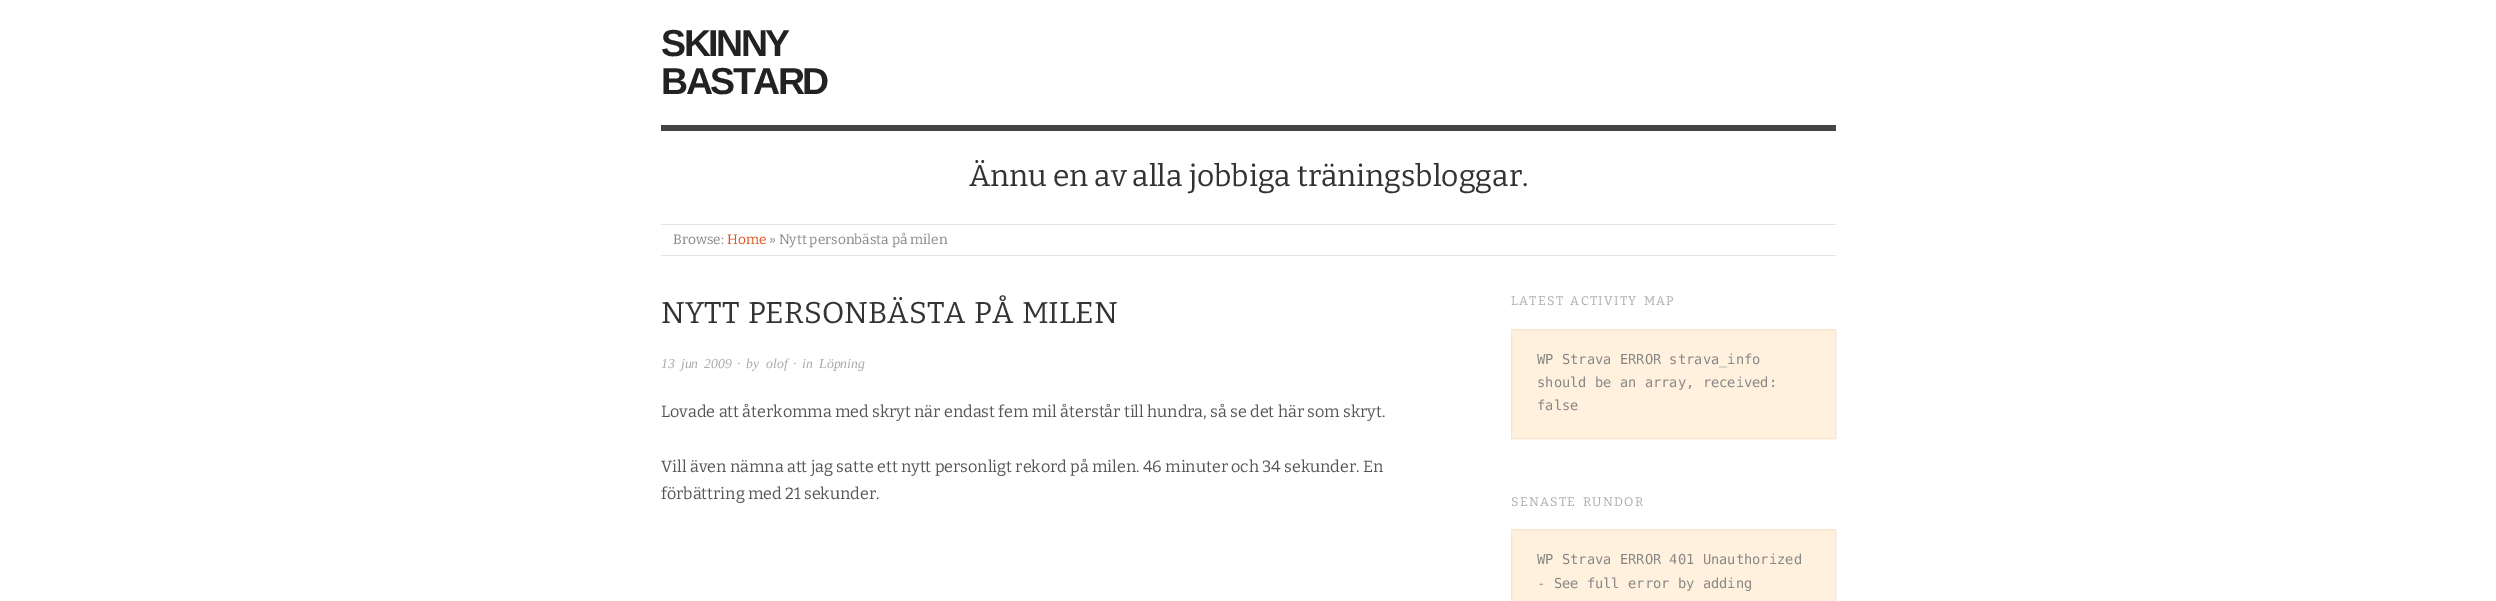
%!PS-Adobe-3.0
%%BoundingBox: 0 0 2496 601
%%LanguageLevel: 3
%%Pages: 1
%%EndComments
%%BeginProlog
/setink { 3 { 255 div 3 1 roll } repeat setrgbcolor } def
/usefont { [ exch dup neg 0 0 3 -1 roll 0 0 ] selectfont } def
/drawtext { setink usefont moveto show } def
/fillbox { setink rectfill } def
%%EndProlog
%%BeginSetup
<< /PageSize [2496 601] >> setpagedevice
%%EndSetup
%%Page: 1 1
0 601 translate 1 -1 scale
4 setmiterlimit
0 0 2496 601 255 255 255 fillbox
/LiberationSans-Bold 37.5 usefont
34 34 34 setink
661 56 moveto -2.5 0 (SKINNY) ashow
661 94 moveto -2.5 0 (BASTARD) ashow
661 125 1175 6 68 68 68 fillbox
(Ännu en av alla jobbiga träningsbloggar.) 969 186 /Bitter-Regular 30 51 51 51 drawtext
661 224 1175 1 229 229 229 fillbox
661 255 1175 1 229 229 229 fillbox
(Browse:) 673 244 /Bitter-Regular 13.75 136 136 136 drawtext
(Home) 727 244 /Bitter-Regular 13.75 221 84 36 drawtext
(» Nytt personbästa på milen) 769 244 /Bitter-Regular 13.75 136 136 136 drawtext
/Bitter-Regular 30 usefont
51 51 51 setink
661 323 moveto 2.5 0 32 (NYTT PERSONBÄSTA PÅ MILEN) widthshow
/LiberationSerif-Italic 13.75 usefont
170 170 170 setink
661 368 moveto 2.5 0 32 (13 jun 2009) widthshow
737 368 moveto 2.5 0 32 (· by) widthshow
(olof) 766 368 /LiberationSerif-Italic 13.75 170 170 170 drawtext
793 368 moveto 2.5 0 32 (· in) widthshow
(Löpning) 819 368 /LiberationSerif-Italic 13.75 170 170 170 drawtext
(Lovade att återkomma med skryt när endast fem mil återstår till hundra, så se det här som skryt.) 661 417 /Bitter-Regular 16.25 85 85 85 drawtext
(Vill även nämna att jag satte ett nytt personligt rekord på milen. 46 minuter och 34 sekunder. En) 661 472 /Bitter-Regular 16.25 85 85 85 drawtext
(förbättring med 21 sekunder.) 661 499 /Bitter-Regular 16.25 85 85 85 drawtext
/Bitter-Regular 12.5 usefont
170 170 170 setink
1511 305 moveto 2.5 0 32 1.25 0 (LATEST ACTIVITY MAP) awidthshow
255 241 221 setink
1511.5 329.5 moveto 1835.5 329.5 lineto 1835.5 438.5 lineto 1511.5 438.5 lineto closepath gsave fill grestore
246 228 204 setink
stroke
(WP Strava ERROR strava_info) 1537 364 /DejaVuSansMono-Regular 13.75 136 136 136 drawtext
(should be an array, received:) 1537 387 /DejaVuSansMono-Regular 13.75 136 136 136 drawtext
(false) 1537 410 /DejaVuSansMono-Regular 13.75 136 136 136 drawtext
/Bitter-Regular 12.5 usefont
170 170 170 setink
1511 506 moveto 2.5 0 32 1.25 0 (SENASTE RUNDOR) awidthshow
255 241 221 setink
1511.5 529.5 moveto 1835.5 529.5 lineto 1835.5 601.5 lineto 1511.5 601.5 lineto closepath gsave fill grestore
246 228 204 setink
stroke
(WP Strava ERROR 401 Unauthorized) 1537 564 /DejaVuSansMono-Regular 13.75 136 136 136 drawtext
(- See full error by adding) 1537 588 /DejaVuSansMono-Regular 13.75 136 136 136 drawtext
showpage
%%EOF
